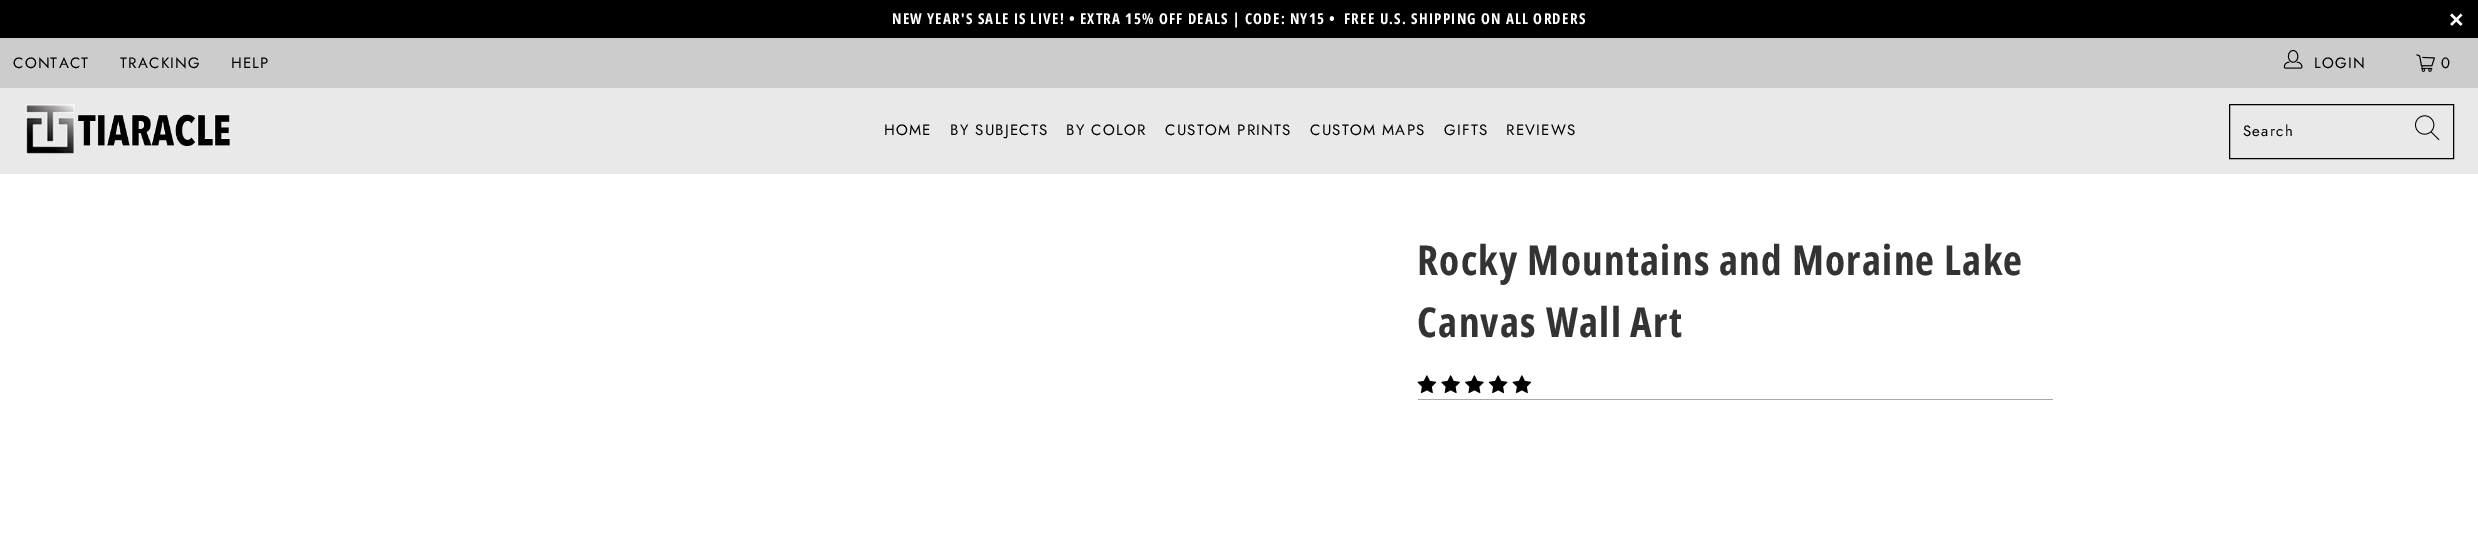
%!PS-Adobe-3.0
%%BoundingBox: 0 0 2478 537
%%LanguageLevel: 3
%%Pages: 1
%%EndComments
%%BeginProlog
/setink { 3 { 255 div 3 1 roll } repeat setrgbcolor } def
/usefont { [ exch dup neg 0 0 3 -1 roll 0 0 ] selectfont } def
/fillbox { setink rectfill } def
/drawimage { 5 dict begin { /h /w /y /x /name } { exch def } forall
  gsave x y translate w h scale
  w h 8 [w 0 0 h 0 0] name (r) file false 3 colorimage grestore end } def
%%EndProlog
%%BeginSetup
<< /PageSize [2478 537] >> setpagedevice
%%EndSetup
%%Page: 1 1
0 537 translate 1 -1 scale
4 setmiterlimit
0 0 2478 537 255 255 255 fillbox
0 0 2478 38 0 0 0 fillbox
/OpenSansCondensed-Bold 15 usefont
255 255 255 setink
892 24 moveto 1.25 0 (NEW YEAR'S SALE IS LIVE! • EXTRA 15% OFF DEALS | CODE: NY15 •  FREE U.S. SHIPPING ON ALL ORDERS) ashow
/LiberationSans-Bold 25 usefont
2449 28 moveto 1.25 0 (×) ashow
0 38 2478 50 204 204 204 fillbox
/Jost-Regular 15 usefont
0 0 0 setink
13 68 moveto 1.25 0 (CONTACT) ashow
120 68 moveto 1.25 0 (TRACKING) ashow
231 68 moveto 1.25 0 (HELP) ashow
(assets/img1.rgb) 2283 49 20 20 drawimage
2314 68 moveto 1.25 0 (LOGIN) ashow
(assets/img2.rgb) 2416 54 19 18 drawimage
2441 68 moveto 1.25 0 (0) ashow
0 88 2478 86 233 233 233 fillbox
(assets/img3.rgb) 25 104 205 50 drawimage
0 0 0 setink
884 135 moveto 1.25 0 (HOME) ashow
950 135 moveto 1.25 0 (BY SUBJECTS) ashow
1066 135 moveto 1.25 0 (BY COLOR) ashow
1165 135 moveto 1.25 0 (CUSTOM PRINTS) ashow
1310 135 moveto 1.25 0 (CUSTOM MAPS) ashow
1444 135 moveto 1.25 0 (GIFTS) ashow
1506 135 moveto 1.25 0 (REVIEWS) ashow
2229.5 104.5 224 54 rectstroke
2243 136 moveto 1.25 0 (Search) ashow
(assets/img4.rgb) 2415 115 25 26 drawimage
/OpenSansCondensed-Bold 41.25 usefont
51 51 51 setink
1417 275 moveto 1.25 0 (Rocky Mountains and Moraine Lake) ashow
1417 337 moveto 1.25 0 (Canvas Wall Art) ashow
(assets/img5.rgb) 1417 375 20 19 drawimage
(assets/img6.rgb) 1441 375 19 19 drawimage
(assets/img7.rgb) 1465 375 19 19 drawimage
(assets/img8.rgb) 1488 375 20 19 drawimage
(assets/img5.rgb) 1512 375 20 19 drawimage
1418 399 635 1 170 170 170 fillbox
showpage
%%EOF
